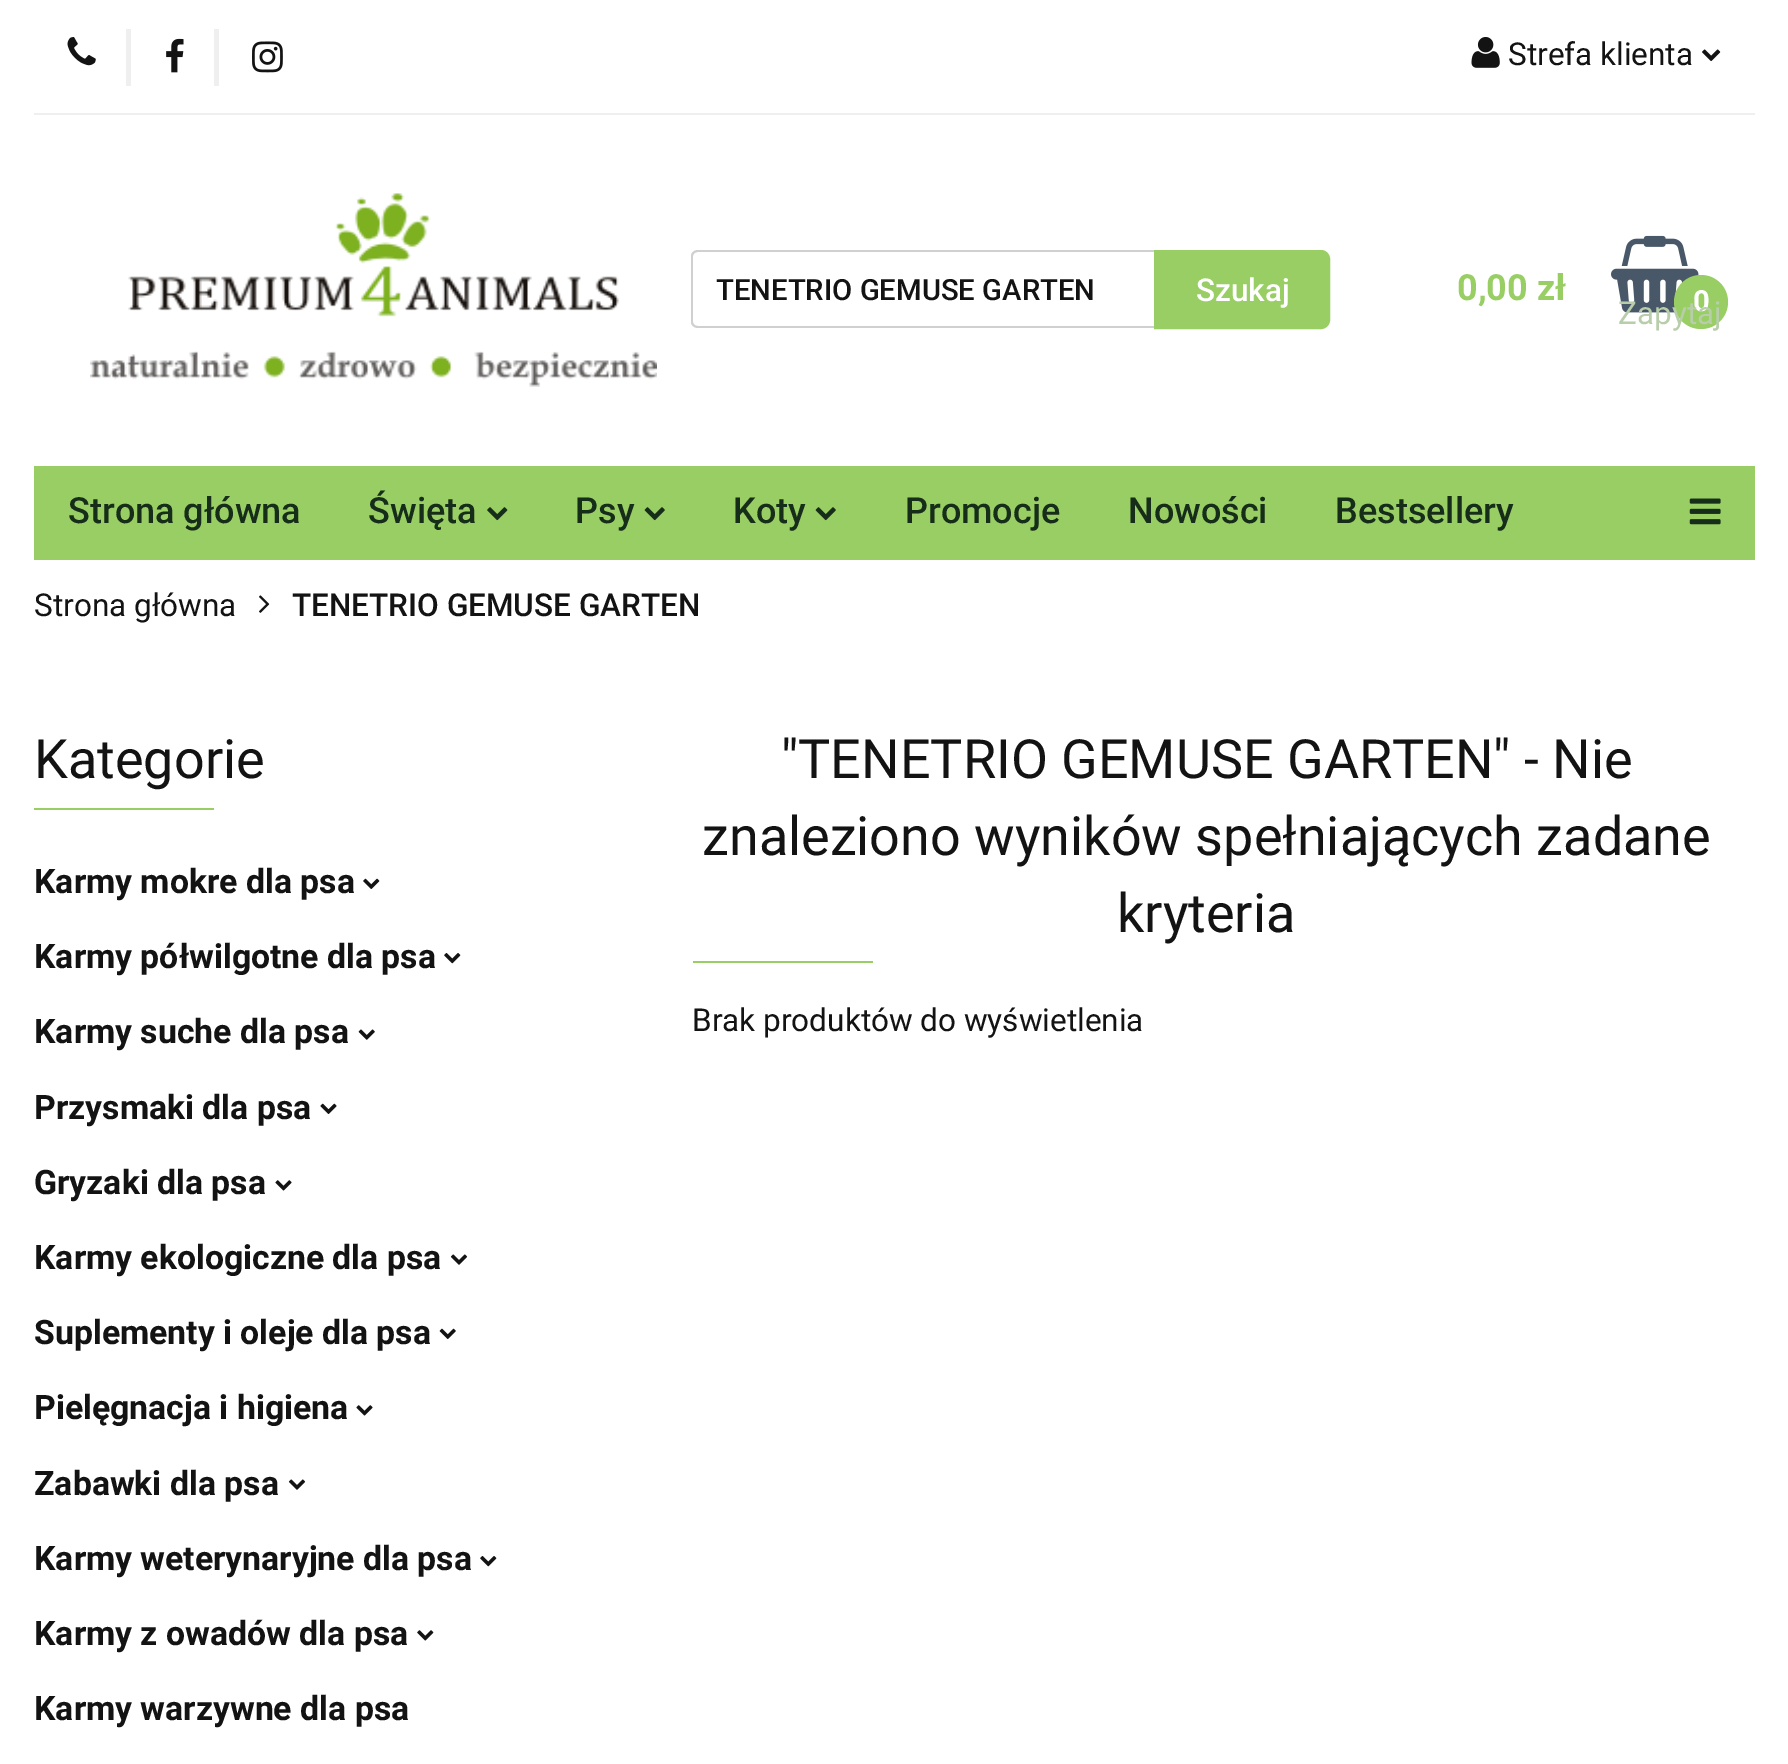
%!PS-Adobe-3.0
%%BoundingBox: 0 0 1788 1764
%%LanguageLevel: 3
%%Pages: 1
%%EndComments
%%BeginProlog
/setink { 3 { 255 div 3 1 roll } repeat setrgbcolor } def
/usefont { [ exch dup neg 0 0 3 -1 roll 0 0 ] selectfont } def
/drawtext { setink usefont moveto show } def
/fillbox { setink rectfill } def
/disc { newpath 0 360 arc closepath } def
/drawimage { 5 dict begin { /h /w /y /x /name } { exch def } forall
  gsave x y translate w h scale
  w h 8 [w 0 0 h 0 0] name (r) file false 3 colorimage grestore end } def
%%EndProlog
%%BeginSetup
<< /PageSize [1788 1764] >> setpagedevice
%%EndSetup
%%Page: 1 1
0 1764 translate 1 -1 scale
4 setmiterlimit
0 0 1788 1764 255 255 255 fillbox
34 113 1721 2 239 239 239 fillbox
(assets/img1.rgb) 67 37 29 29 drawimage
126 29 5 57 239 239 239 fillbox
(assets/img2.rgb) 166 38 18 35 drawimage
214 29 5 57 239 239 239 fillbox
(assets/img3.rgb) 252 41 31 32 drawimage
(assets/img4.rgb) 1471 37 29 31 drawimage
(Strefa klienta) 1508 65 /Roboto-Regular 31.5 19 19 19 drawtext
(assets/img5.rgb) 1702 49 19 13 drawimage
(assets/img7.rgb) 1611 235 88 78 drawimage
152 206 99 setink
1701 302 27 disc fill
(0) 1693 311 /Roboto-Bold 29.25 255 255 255 drawtext
(Zapytaj) 1618 324 /Roboto-Regular 31.5 184 206 171 drawtext
(assets/img6.rgb) 90 193 567 194 drawimage
208 208 208 setink
698 250 moveto 1154 250 lineto 1154 328 lineto 698 328 lineto 694 328 691 325 691 322 curveto 691 256 lineto 691 253 694 250 698 250 curveto closepath 698 252 moveto 1154 252 lineto 1154 326 lineto 698 326 lineto 695 326 693 324 693 322 curveto 693 256 lineto 693 254 695 252 698 252 curveto closepath eofill
(TENETRIO GEMUSE GARTEN) 716 300 /Roboto-Medium 29.25 19 19 19 drawtext
152 206 99 setink
1157.5 253.5 moveto 1321 253.5 lineto 1324 253.5 1326.5 256 1326.5 259 curveto 1326.5 320 lineto 1326.5 323 1324 325.5 1321 325.5 curveto 1157.5 325.5 lineto closepath gsave fill grestore
7 setlinewidth
stroke
(Szukaj) 1196 301 /Roboto-Medium 31.5 255 255 255 drawtext
(0,00 zł) 1457 300 /Roboto-Bold 36 152 206 99 drawtext
34 466 1721 94 152 206 99 fillbox
(Strona główna) 68 523 /Roboto-Medium 36 22 46 25 drawtext
(Święta) 368 523 /Roboto-Medium 36 22 46 25 drawtext
(assets/img8.rgb) 487 507 21 14 drawimage
(Psy) 575 523 /Roboto-Medium 36 22 46 25 drawtext
(assets/img9.rgb) 644 507 21 14 drawimage
(Koty) 733 523 /Roboto-Medium 36 22 46 25 drawtext
(assets/img9.rgb) 815 507 21 14 drawimage
(Promocje) 905 523 /Roboto-Medium 36 22 46 25 drawtext
(Nowości) 1128 523 /Roboto-Medium 36 22 46 25 drawtext
(Bestsellery) 1335 523 /Roboto-Medium 36 22 46 25 drawtext
(assets/img10.rgb) 1689 498 32 27 drawimage
(Strona główna) 34 616 /Roboto-Regular 31.5 19 19 19 drawtext
(assets/img11.rgb) 259 595 11 18 drawimage
(TENETRIO GEMUSE GARTEN) 292 616 /Roboto-Medium 31.5 19 19 19 drawtext
(Kategorie) 34 778 /Roboto-Regular 54 19 19 19 drawtext
34 808 180 2 152 206 99 fillbox
(Karmy mokre dla psa) 34 893 /Roboto-Bold 33.75 19 19 19 drawtext
(assets/img12.rgb) 363 878 17 11 drawimage
(Karmy półwilgotne dla psa) 34 968 /Roboto-Bold 33.75 19 19 19 drawtext
(assets/img13.rgb) 444 953 17 11 drawimage
(Karmy suche dla psa) 34 1043 /Roboto-Bold 33.75 19 19 19 drawtext
(assets/img14.rgb) 358 1029 17 11 drawimage
(Przysmaki dla psa) 34 1119 /Roboto-Bold 33.75 19 19 19 drawtext
(assets/img15.rgb) 320 1103 17 11 drawimage
(Gryzaki dla psa) 34 1194 /Roboto-Bold 33.75 19 19 19 drawtext
(assets/img16.rgb) 275 1180 17 11 drawimage
(Karmy ekologiczne dla psa) 34 1269 /Roboto-Bold 33.75 19 19 19 drawtext
(assets/img17.rgb) 450 1254 18 11 drawimage
(Suplementy i oleje dla psa) 34 1344 /Roboto-Bold 33.75 19 19 19 drawtext
(assets/img18.rgb) 439 1328 17 11 drawimage
(Pielęgnacja i higiena) 34 1419 /Roboto-Bold 33.75 19 19 19 drawtext
(assets/img16.rgb) 356 1405 17 11 drawimage
(Zabawki dla psa) 34 1495 /Roboto-Bold 33.75 19 19 19 drawtext
(assets/img17.rgb) 288 1479 18 11 drawimage
(Karmy weterynaryjne dla psa) 34 1570 /Roboto-Bold 33.75 19 19 19 drawtext
(assets/img13.rgb) 480 1556 17 11 drawimage
(Karmy z owadów dla psa) 34 1645 /Roboto-Bold 33.75 19 19 19 drawtext
(assets/img19.rgb) 417 1630 17 11 drawimage
(Karmy warzywne dla psa) 34 1720 /Roboto-Bold 33.75 19 19 19 drawtext
("TENETRIO GEMUSE GARTEN" - Nie) 781 778 /Roboto-Regular 54 19 19 19 drawtext
(znaleziono wyników spełniających zadane) 702 855 /Roboto-Regular 54 19 19 19 drawtext
(kryteria) 1117 932 /Roboto-Regular 54 19 19 19 drawtext
693 961 180 2 152 206 99 fillbox
(Brak produktów do wyświetlenia) 692 1031 /Roboto-Regular 31.5 19 19 19 drawtext
showpage
%%EOF
